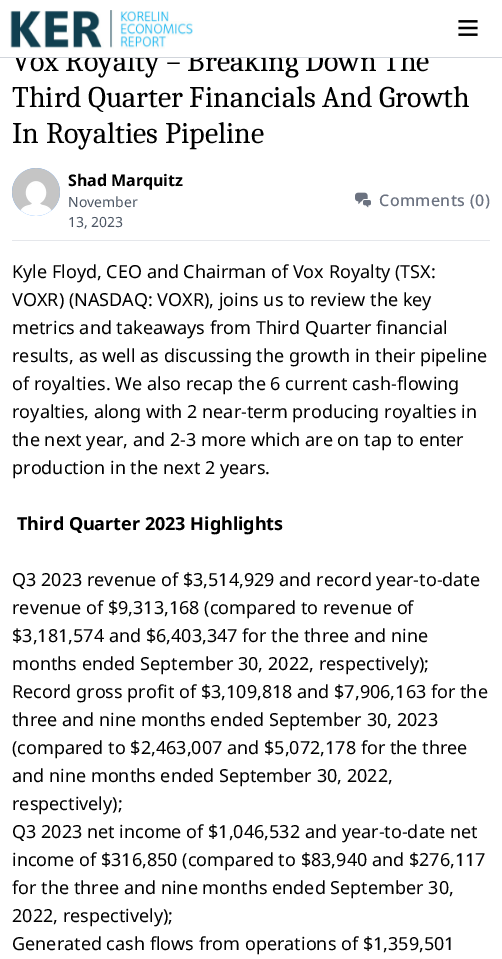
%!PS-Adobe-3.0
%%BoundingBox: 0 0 502 959
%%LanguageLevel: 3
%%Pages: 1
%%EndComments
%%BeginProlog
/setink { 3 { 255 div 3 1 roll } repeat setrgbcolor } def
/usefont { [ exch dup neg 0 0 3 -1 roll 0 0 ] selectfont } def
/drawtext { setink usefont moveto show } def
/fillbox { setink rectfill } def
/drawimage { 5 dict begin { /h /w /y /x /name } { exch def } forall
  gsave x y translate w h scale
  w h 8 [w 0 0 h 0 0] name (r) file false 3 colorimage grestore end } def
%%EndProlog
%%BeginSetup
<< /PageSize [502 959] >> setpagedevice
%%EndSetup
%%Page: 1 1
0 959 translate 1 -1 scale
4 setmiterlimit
0 0 502 959 255 255 255 fillbox
(Vox Royalty – Breaking Down The) 12 71 /Caladea-Regular 30 0 0 0 drawtext
12 50 414 7 255 255 255 fillbox
0 57 502 1 209 213 219 fillbox
(assets/img1.rgb) 10 10 183 39 drawimage
(assets/img2.rgb) 458 20 20 16 drawimage
(Third Quarter Financials And Growth) 12 107 /Caladea-Regular 30 0 0 0 drawtext
(In Royalties Pipeline) 12 143 /Caladea-Regular 30 0 0 0 drawtext
12 240 478 1 229 231 235 fillbox
(assets/img3.rgb) 12 168 48 48 drawimage
(Shad Marquitz) 68 186 /NotoSans-Bold 16 0 0 0 drawtext
(November) 68 207 /NotoSans-Regular 14 75 85 99 drawtext
(13, 2023) 68 227 /NotoSans-Regular 14 75 85 99 drawtext
(assets/img4.rgb) 355 192 16 16 drawimage
/NotoSans-Medium 16 usefont
107 114 128 setink
379 206 moveto 0.4 0 (Comments \(0\)) ashow
(Kyle Floyd, CEO and Chairman of Vox Royalty \(TSX:) 12 278 /NotoSans-Regular 18 0 0 0 drawtext
(VOXR\) \(NASDAQ: VOXR\), joins us to review the key) 12 306 /NotoSans-Regular 18 0 0 0 drawtext
(metrics and takeaways from Third Quarter financial) 12 334 /NotoSans-Regular 18 0 0 0 drawtext
(results, as well as discussing the growth in their pipeline) 12 362 /NotoSans-Regular 18 0 0 0 drawtext
(of royalties. We also recap the 6 current cash-flowing) 12 390 /NotoSans-Regular 18 0 0 0 drawtext
(royalties, along with 2 near-term producing royalties in) 12 418 /NotoSans-Regular 18 0 0 0 drawtext
(the next year, and 2-3 more which are on tap to enter) 12 446 /NotoSans-Regular 18 0 0 0 drawtext
(production in the next 2 years.) 12 474 /NotoSans-Regular 18 0 0 0 drawtext
(Third Quarter 2023 Highlights) 17 530 /NotoSans-Bold 18 0 0 0 drawtext
(Q3 2023 revenue of $3,514,929 and record year-to-date) 12 586 /NotoSans-Regular 18 0 0 0 drawtext
(revenue of $9,313,168 \(compared to revenue of) 12 614 /NotoSans-Regular 18 0 0 0 drawtext
($3,181,574 and $6,403,347 for the three and nine) 12 642 /NotoSans-Regular 18 0 0 0 drawtext
(months ended September 30, 2022, respectively\);) 12 670 /NotoSans-Regular 18 0 0 0 drawtext
(Record gross profit of $3,109,818 and $7,906,163 for the) 12 698 /NotoSans-Regular 18 0 0 0 drawtext
(three and nine months ended September 30, 2023) 12 726 /NotoSans-Regular 18 0 0 0 drawtext
(\(compared to $2,463,007 and $5,072,178 for the three) 12 754 /NotoSans-Regular 18 0 0 0 drawtext
(and nine months ended September 30, 2022,) 12 782 /NotoSans-Regular 18 0 0 0 drawtext
(respectively\);) 12 810 /NotoSans-Regular 18 0 0 0 drawtext
(Q3 2023 net income of $1,046,532 and year-to-date net) 12 838 /NotoSans-Regular 18 0 0 0 drawtext
(income of $316,850 \(compared to $83,940 and $276,117) 12 866 /NotoSans-Regular 18 0 0 0 drawtext
(for the three and nine months ended September 30,) 12 894 /NotoSans-Regular 18 0 0 0 drawtext
(2022, respectively\);) 12 922 /NotoSans-Regular 18 0 0 0 drawtext
(Generated cash flows from operations of $1,359,501) 12 950 /NotoSans-Regular 18 0 0 0 drawtext
showpage
%%EOF
